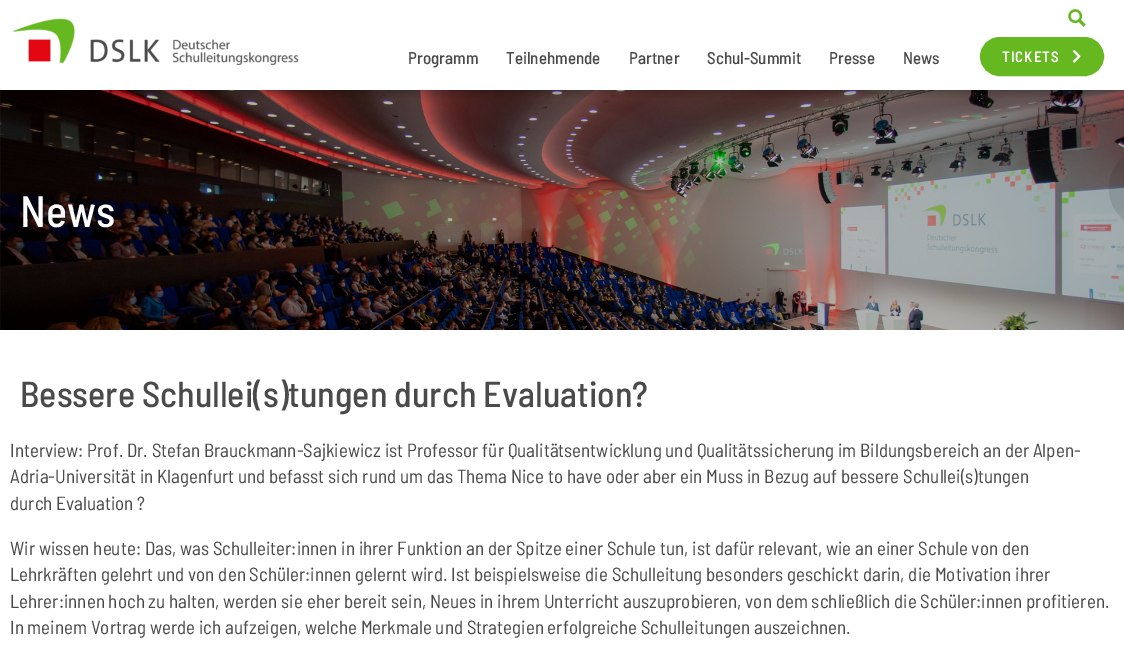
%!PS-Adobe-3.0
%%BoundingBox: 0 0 1124 664
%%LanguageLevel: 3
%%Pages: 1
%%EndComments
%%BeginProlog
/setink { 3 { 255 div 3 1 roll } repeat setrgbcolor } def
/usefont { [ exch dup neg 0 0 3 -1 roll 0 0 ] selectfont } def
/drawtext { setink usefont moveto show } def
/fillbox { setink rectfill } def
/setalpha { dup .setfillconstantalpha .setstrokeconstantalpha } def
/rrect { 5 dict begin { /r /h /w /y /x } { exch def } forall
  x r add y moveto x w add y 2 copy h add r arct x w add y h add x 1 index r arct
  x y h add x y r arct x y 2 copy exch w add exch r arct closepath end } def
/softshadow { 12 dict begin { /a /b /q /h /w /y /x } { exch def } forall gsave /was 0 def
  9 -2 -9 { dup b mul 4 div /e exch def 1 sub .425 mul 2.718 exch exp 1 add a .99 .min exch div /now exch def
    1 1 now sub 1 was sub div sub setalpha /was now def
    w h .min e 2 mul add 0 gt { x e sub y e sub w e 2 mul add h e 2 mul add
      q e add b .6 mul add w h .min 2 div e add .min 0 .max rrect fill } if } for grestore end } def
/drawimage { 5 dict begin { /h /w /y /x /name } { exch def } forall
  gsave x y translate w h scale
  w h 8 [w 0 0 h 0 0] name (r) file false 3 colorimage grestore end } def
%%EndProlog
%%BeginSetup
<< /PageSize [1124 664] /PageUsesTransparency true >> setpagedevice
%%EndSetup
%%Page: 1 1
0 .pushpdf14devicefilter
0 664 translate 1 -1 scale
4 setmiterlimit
0 0 1124 664 255 255 255 fillbox
(assets/img4.rgb) 0 90 1124 240 drawimage
gsave
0 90 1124 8 rectclip
0 0 0 setink
0 0 1124 90 0 5 0.36 softshadow
grestore
(assets/img1.rgb) 13 18 286 47 drawimage
(Programm) 408 64 /BarlowSemiCondensed-Medium 17 74 74 73 drawtext
(Teilnehmende) 506 64 /BarlowSemiCondensed-Medium 17 74 74 73 drawtext
(Partner) 629 64 /BarlowSemiCondensed-Medium 17 74 74 73 drawtext
(Schul-Summit) 707 64 /BarlowSemiCondensed-Medium 17 74 74 73 drawtext
(Presse) 829 64 /BarlowSemiCondensed-Medium 17 74 74 73 drawtext
(News) 903 64 /BarlowSemiCondensed-Medium 17 74 74 73 drawtext
102 184 33 setink
981 38 122 37 18.5 rrect gsave fill grestore
2 setlinewidth
stroke
/BarlowSemiCondensed-SemiBold 15 usefont
255 255 255 setink
1002 62 moveto 1 0 (TICKETS) ashow
(assets/img2.rgb) 1072 50 9 13 drawimage
(assets/img3.rgb) 1068 9 18 18 drawimage
(News) 20 227 /BarlowSemiCondensed-Medium 44 255 255 255 drawtext
(Bessere Schullei\(s\)tungen durch Evaluation?) 20 407 /BarlowSemiCondensed-Medium 36 74 74 73 drawtext
(Interview: Prof. Dr. Stefan Brauckmann-Sajkiewicz ist Professor für Qualitätsentwicklung und Qualitätssicherung im Bildungsbereich an der Alpen-) 10 457 /BarlowSemiCondensed-Regular 19 74 74 73 drawtext
(Adria-Universität in Klagenfurt und befasst sich rund um das Thema Nice to have oder aber ein Muss in Bezug auf bessere Schullei\(s\)tungen) 10 483 /BarlowSemiCondensed-Regular 19 74 74 73 drawtext
(durch Evaluation ?) 10 510 /BarlowSemiCondensed-Regular 19 74 74 73 drawtext
(Wir wissen heute: Das, was Schulleiter:innen in ihrer Funktion an der Spitze einer Schule tun, ist dafür relevant, wie an einer Schule von den) 10 555 /BarlowSemiCondensed-Regular 19 74 74 73 drawtext
(Lehrkräften gelehrt und von den Schüler:innen gelernt wird. Ist beispielsweise die Schulleitung besonders geschickt darin, die Motivation ihrer) 10 581 /BarlowSemiCondensed-Regular 19 74 74 73 drawtext
(Lehrer:innen hoch zu halten, werden sie eher bereit sein, Neues in ihrem Unterricht auszuprobieren, von dem schließlich die Schüler:innen profitieren.) 10 608 /BarlowSemiCondensed-Regular 19 74 74 73 drawtext
(In meinem Vortrag werde ich aufzeigen, welche Merkmale und Strategien erfolgreiche Schulleitungen auszeichnen.) 10 634 /BarlowSemiCondensed-Regular 19 74 74 73 drawtext
.poppdf14devicefilter showpage
%%EOF
